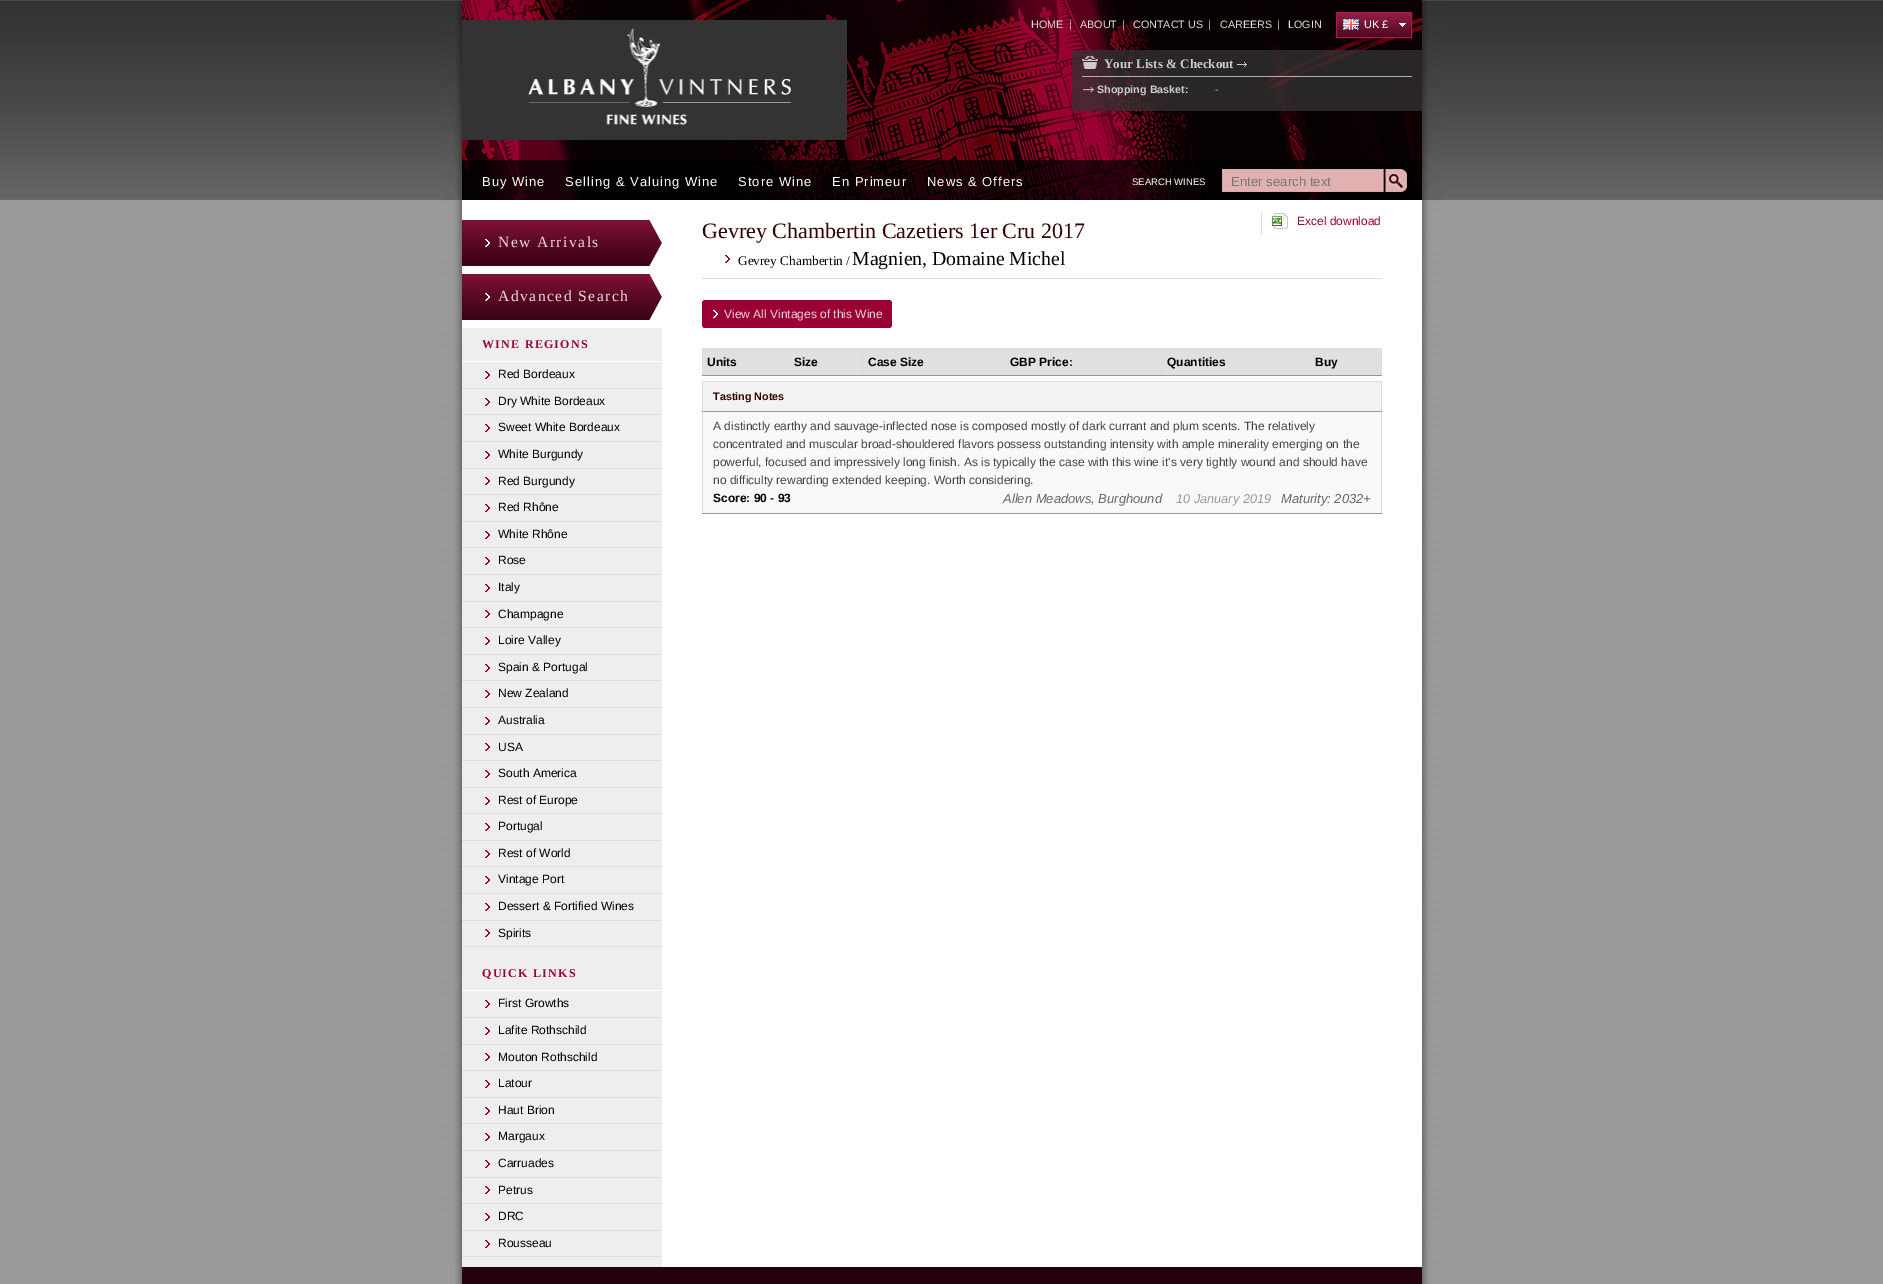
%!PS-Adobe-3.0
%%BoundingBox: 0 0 1883 1284
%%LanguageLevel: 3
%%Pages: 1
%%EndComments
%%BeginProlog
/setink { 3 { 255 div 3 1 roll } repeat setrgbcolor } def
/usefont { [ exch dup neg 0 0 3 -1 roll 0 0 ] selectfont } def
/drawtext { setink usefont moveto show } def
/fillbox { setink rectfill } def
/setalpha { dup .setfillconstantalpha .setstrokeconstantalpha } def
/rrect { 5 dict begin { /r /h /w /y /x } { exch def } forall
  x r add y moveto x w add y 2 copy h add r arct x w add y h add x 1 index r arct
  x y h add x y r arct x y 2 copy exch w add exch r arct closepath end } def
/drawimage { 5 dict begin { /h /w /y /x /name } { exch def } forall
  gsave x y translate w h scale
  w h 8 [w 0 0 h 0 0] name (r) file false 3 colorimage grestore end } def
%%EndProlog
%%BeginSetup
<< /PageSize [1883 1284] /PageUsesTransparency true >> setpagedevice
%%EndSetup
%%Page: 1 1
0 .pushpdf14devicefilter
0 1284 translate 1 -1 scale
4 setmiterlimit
0 0 1883 1284 153 153 153 fillbox
(assets/img1.rgb) 0 0 1883 200 drawimage
(assets/img2.rgb) 442 0 1000 200 drawimage
(assets/img3.rgb) 462 20 385 120 drawimage
(HOME) 1031 28 /LiberationSans-Regular 10.75 221 221 221 drawtext
(|) 1069 28 /LiberationSans-Regular 10.75 204 204 204 drawtext
(ABOUT) 1080 28 /LiberationSans-Regular 10.75 221 221 221 drawtext
(|) 1122 28 /LiberationSans-Regular 10.75 204 204 204 drawtext
(CONTACT US) 1133 28 /LiberationSans-Regular 10.75 221 221 221 drawtext
(|) 1208 28 /LiberationSans-Regular 10.75 204 204 204 drawtext
(CAREERS) 1220 28 /LiberationSans-Regular 10.75 221 221 221 drawtext
(|) 1277 28 /LiberationSans-Regular 10.75 204 204 204 drawtext
(LOGIN) 1288 28 /LiberationSans-Regular 10.75 221 221 221 drawtext
(assets/img4.rgb) 1337 13 74 24 drawimage
172 25 69 setink
1336.5 12.5 75 25 rectstroke
(assets/img5.rgb) 1343 19 16 11 drawimage
(UK £) 1364 28 /LiberationSans-Regular 11 255 255 255 drawtext
0.75 setalpha
1072 50 350 61 51 51 51 fillbox
1 setalpha
(assets/img6.rgb) 1082 56 16 13 drawimage
0.75 setalpha
1082 76 330 1 221 221 221 fillbox
1 setalpha
(Your Lists & Checkout) 1104 68 /LiberationSerif-Bold 13 204 204 204 drawtext
(assets/img7.rgb) 1237 62 10 5 drawimage
(assets/img8.rgb) 1083 87 11 6 drawimage
(Shopping Basket:) 1097 93 /LiberationSans-Bold 10.75 204 204 204 drawtext
(-) 1215 93 /LiberationSans-Regular 10.75 193 191 192 drawtext
0.7 setalpha
462 160 960 40 0 0 0 fillbox
/LiberationSans-Regular 13 usefont
1 setalpha
255 255 255 setink
482 186 moveto 1 0 (Buy Wine) ashow
565 186 moveto 1 0 (Selling & Valuing Wine) ashow
738 186 moveto 1 0 (Store Wine) ashow
832 186 moveto 1 0 (En Primeur) ashow
927 186 moveto 1 0 (News & Offers) ashow
(assets/img9.rgb) 1222 169 185 23 drawimage
(SEARCH WINES) 1132 185 /LiberationSans-Regular 9.5 255 255 255 drawtext
(Enter search text) 1231 186 /LiberationSans-Regular 13.25 119 119 119 drawtext
(assets/img10.rgb) 442 200 1000 1067 drawimage
462 328 200 939 238 238 238 fillbox
(assets/img11.rgb) 462 220 200 46 drawimage
/LiberationSerif-Regular 15.5 usefont
240 215 215 setink
498 247 moveto 1.5 0 (New Arrivals) ashow
(assets/img11.rgb) 462 274 200 46 drawimage
498 301 moveto 1.5 0 (Advanced Search) ashow
462 361 200 1 255 255 255 fillbox
/LiberationSerif-Bold 12 usefont
153 0 51 setink
482 348 moveto 1.25 0 (WINE REGIONS) ashow
(assets/img12.rgb) 485 371 5 8 drawimage
462 388 200 1 221 221 221 fillbox
(Red Bordeaux) 498 378 /LiberationSans-Regular 12 0 0 0 drawtext
(assets/img12.rgb) 485 398 5 8 drawimage
462 414 200 1 221 221 221 fillbox
(Dry White Bordeaux) 498 405 /LiberationSans-Regular 12 0 0 0 drawtext
(assets/img12.rgb) 485 424 5 8 drawimage
462 441 200 1 221 221 221 fillbox
(Sweet White Bordeaux) 498 431 /LiberationSans-Regular 12 0 0 0 drawtext
(assets/img12.rgb) 485 451 5 8 drawimage
462 468 200 1 221 221 221 fillbox
(White Burgundy) 498 458 /LiberationSans-Regular 12 0 0 0 drawtext
(assets/img12.rgb) 485 477 5 8 drawimage
462 494 200 1 221 221 221 fillbox
(Red Burgundy) 498 485 /LiberationSans-Regular 12 0 0 0 drawtext
(assets/img12.rgb) 485 504 5 8 drawimage
462 521 200 1 221 221 221 fillbox
(Red Rhône) 498 511 /LiberationSans-Regular 12 0 0 0 drawtext
(assets/img12.rgb) 485 531 5 8 drawimage
462 547 200 1 221 221 221 fillbox
(White Rhône) 498 538 /LiberationSans-Regular 12 0 0 0 drawtext
(assets/img12.rgb) 485 557 5 8 drawimage
462 574 200 1 221 221 221 fillbox
(Rose) 498 564 /LiberationSans-Regular 12 0 0 0 drawtext
(assets/img12.rgb) 485 584 5 8 drawimage
462 601 200 1 221 221 221 fillbox
(Italy) 498 591 /LiberationSans-Regular 12 0 0 0 drawtext
(assets/img12.rgb) 485 610 5 8 drawimage
462 627 200 1 221 221 221 fillbox
(Champagne) 498 618 /LiberationSans-Regular 12 0 0 0 drawtext
(assets/img12.rgb) 485 637 5 8 drawimage
462 654 200 1 221 221 221 fillbox
(Loire Valley) 498 644 /LiberationSans-Regular 12 0 0 0 drawtext
(assets/img12.rgb) 485 664 5 8 drawimage
462 680 200 1 221 221 221 fillbox
(Spain & Portugal) 498 671 /LiberationSans-Regular 12 0 0 0 drawtext
(assets/img12.rgb) 485 690 5 8 drawimage
462 707 200 1 221 221 221 fillbox
(New Zealand) 498 697 /LiberationSans-Regular 12 0 0 0 drawtext
(assets/img12.rgb) 485 717 5 8 drawimage
462 734 200 1 221 221 221 fillbox
(Australia) 498 724 /LiberationSans-Regular 12 0 0 0 drawtext
(assets/img12.rgb) 485 743 5 8 drawimage
462 760 200 1 221 221 221 fillbox
(USA) 498 751 /LiberationSans-Regular 12 0 0 0 drawtext
(assets/img12.rgb) 485 770 5 8 drawimage
462 787 200 1 221 221 221 fillbox
(South America) 498 777 /LiberationSans-Regular 12 0 0 0 drawtext
(assets/img12.rgb) 485 797 5 8 drawimage
462 813 200 1 221 221 221 fillbox
(Rest of Europe) 498 804 /LiberationSans-Regular 12 0 0 0 drawtext
(assets/img12.rgb) 485 823 5 8 drawimage
462 840 200 1 221 221 221 fillbox
(Portugal) 498 830 /LiberationSans-Regular 12 0 0 0 drawtext
(assets/img12.rgb) 485 850 5 8 drawimage
462 866 200 1 221 221 221 fillbox
(Rest of World) 498 857 /LiberationSans-Regular 12 0 0 0 drawtext
(assets/img12.rgb) 485 876 5 8 drawimage
462 893 200 1 221 221 221 fillbox
(Vintage Port) 498 883 /LiberationSans-Regular 12 0 0 0 drawtext
(assets/img12.rgb) 485 903 5 8 drawimage
462 920 200 1 221 221 221 fillbox
(Dessert & Fortified Wines) 498 910 /LiberationSans-Regular 12 0 0 0 drawtext
(assets/img12.rgb) 485 929 5 8 drawimage
462 946 200 1 221 221 221 fillbox
(Spirits) 498 937 /LiberationSans-Regular 12 0 0 0 drawtext
462 990 200 1 255 255 255 fillbox
/LiberationSerif-Bold 12 usefont
153 0 51 setink
482 977 moveto 1.25 0 (QUICK LINKS) ashow
(assets/img12.rgb) 485 1000 5 8 drawimage
462 1017 200 1 221 221 221 fillbox
(First Growths) 498 1007 /LiberationSans-Regular 12 0 0 0 drawtext
(assets/img12.rgb) 485 1027 5 8 drawimage
462 1044 200 1 221 221 221 fillbox
(Lafite Rothschild) 498 1034 /LiberationSans-Regular 12 0 0 0 drawtext
(assets/img12.rgb) 485 1053 5 8 drawimage
462 1070 200 1 221 221 221 fillbox
(Mouton Rothschild) 498 1061 /LiberationSans-Regular 12 0 0 0 drawtext
(assets/img12.rgb) 485 1080 5 8 drawimage
462 1097 200 1 221 221 221 fillbox
(Latour) 498 1087 /LiberationSans-Regular 12 0 0 0 drawtext
(assets/img12.rgb) 485 1107 5 8 drawimage
462 1123 200 1 221 221 221 fillbox
(Haut Brion) 498 1114 /LiberationSans-Regular 12 0 0 0 drawtext
(assets/img12.rgb) 485 1133 5 8 drawimage
462 1150 200 1 221 221 221 fillbox
(Margaux) 498 1140 /LiberationSans-Regular 12 0 0 0 drawtext
(assets/img12.rgb) 485 1160 5 8 drawimage
462 1177 200 1 221 221 221 fillbox
(Carruades) 498 1167 /LiberationSans-Regular 12 0 0 0 drawtext
(assets/img12.rgb) 485 1186 5 8 drawimage
462 1203 200 1 221 221 221 fillbox
(Petrus) 498 1194 /LiberationSans-Regular 12 0 0 0 drawtext
(assets/img12.rgb) 485 1213 5 8 drawimage
462 1230 200 1 221 221 221 fillbox
(DRC) 498 1220 /LiberationSans-Regular 12 0 0 0 drawtext
(assets/img12.rgb) 485 1240 5 8 drawimage
462 1256 200 1 221 221 221 fillbox
(Rousseau) 498 1247 /LiberationSans-Regular 12 0 0 0 drawtext
1261 212 1 22 221 221 221 fillbox
(assets/img13.rgb) 1272 213 16 16 drawimage
(Excel download) 1297 225 /LiberationSans-Regular 12 153 0 51 drawtext
(Gevrey Chambertin Cazetiers 1er Cru 2017) 702 238 /LiberationSerif-Regular 22 51 0 0 drawtext
(assets/img14.rgb) 725 255 5 8 drawimage
(Gevrey Chambertin /) 738 265 /LiberationSerif-Regular 13.25 0 0 0 drawtext
(Magnien, Domaine Michel) 852 265 /LiberationSerif-Regular 19.75 0 0 0 drawtext
702 278 680 1 221 221 221 fillbox
153 0 51 setink
702 300 190 28 3 rrect fill
(assets/img15.rgb) 713 310 5 8 drawimage
(View All Vintages of this Wine) 724 318 /LiberationSans-Regular 12 240 215 215 drawtext
702 348 680 1 221 221 221 fillbox
702 348 1 28 221 221 221 fillbox
703 349 85 26 224 224 224 fillbox
1381 348 1 28 221 221 221 fillbox
1309 375 73 1 153 153 153 fillbox
1309 348 1 28 221 221 221 fillbox
1161 375 149 1 153 153 153 fillbox
1161 348 1 28 221 221 221 fillbox
1005 375 157 1 153 153 153 fillbox
1005 348 1 28 221 221 221 fillbox
862 375 144 1 153 153 153 fillbox
862 348 1 28 221 221 221 fillbox
788 375 75 1 153 153 153 fillbox
788 348 1 28 221 221 221 fillbox
702 375 87 1 153 153 153 fillbox
(Units) 707 366 /LiberationSans-Bold 12 0 0 0 drawtext
789 349 73 26 224 224 224 fillbox
(Size) 794 366 /LiberationSans-Bold 12 0 0 0 drawtext
863 349 142 26 224 224 224 fillbox
(Case Size) 868 366 /LiberationSans-Bold 12 0 0 0 drawtext
1006 349 155 26 224 224 224 fillbox
(GBP Price:) 1010 366 /LiberationSans-Bold 12 0 0 0 drawtext
1162 349 147 26 224 224 224 fillbox
(Quantities) 1167 366 /LiberationSans-Bold 12 0 0 0 drawtext
1310 349 71 26 224 224 224 fillbox
(Buy) 1315 366 /LiberationSans-Bold 12 0 0 0 drawtext
702 381 680 1 221 221 221 fillbox
1381 381 1 133 221 221 221 fillbox
702 381 1 133 221 221 221 fillbox
703 382 678 29 243 243 243 fillbox
702 411 680 1 153 153 153 fillbox
(Tasting Notes) 713 400 /LiberationSans-Bold 10.75 51 0 0 drawtext
703 412 678 101 249 249 249 fillbox
702 513 680 1 153 153 153 fillbox
(A distinctly earthy and sauvage-inflected nose is composed mostly of dark currant and plum scents. The relatively) 713 430 /LiberationSans-Regular 12 68 68 68 drawtext
(concentrated and muscular broad-shouldered flavors possess outstanding intensity with ample minerality emerging on the) 713 448 /LiberationSans-Regular 12 68 68 68 drawtext
(powerful, focused and impressively long finish. As is typically the case with this wine it's very tightly wound and should have) 713 466 /LiberationSans-Regular 12 68 68 68 drawtext
(no difficulty rewarding extended keeping. Worth considering.) 713 484 /LiberationSans-Regular 12 68 68 68 drawtext
(Score: 90 - 93) 713 502 /LiberationSans-Bold 12 0 0 0 drawtext
(Allen Meadows, Burghound) 1003 503 /LiberationSans-Italic 13 102 102 102 drawtext
(10 January 2019) 1176 503 /LiberationSans-Italic 12.75 153 153 153 drawtext
(Maturity: 2032+) 1281 503 /LiberationSans-Italic 13 102 102 102 drawtext
(assets/img16.rgb) 455 1267 974 17 drawimage
.poppdf14devicefilter showpage
%%EOF
